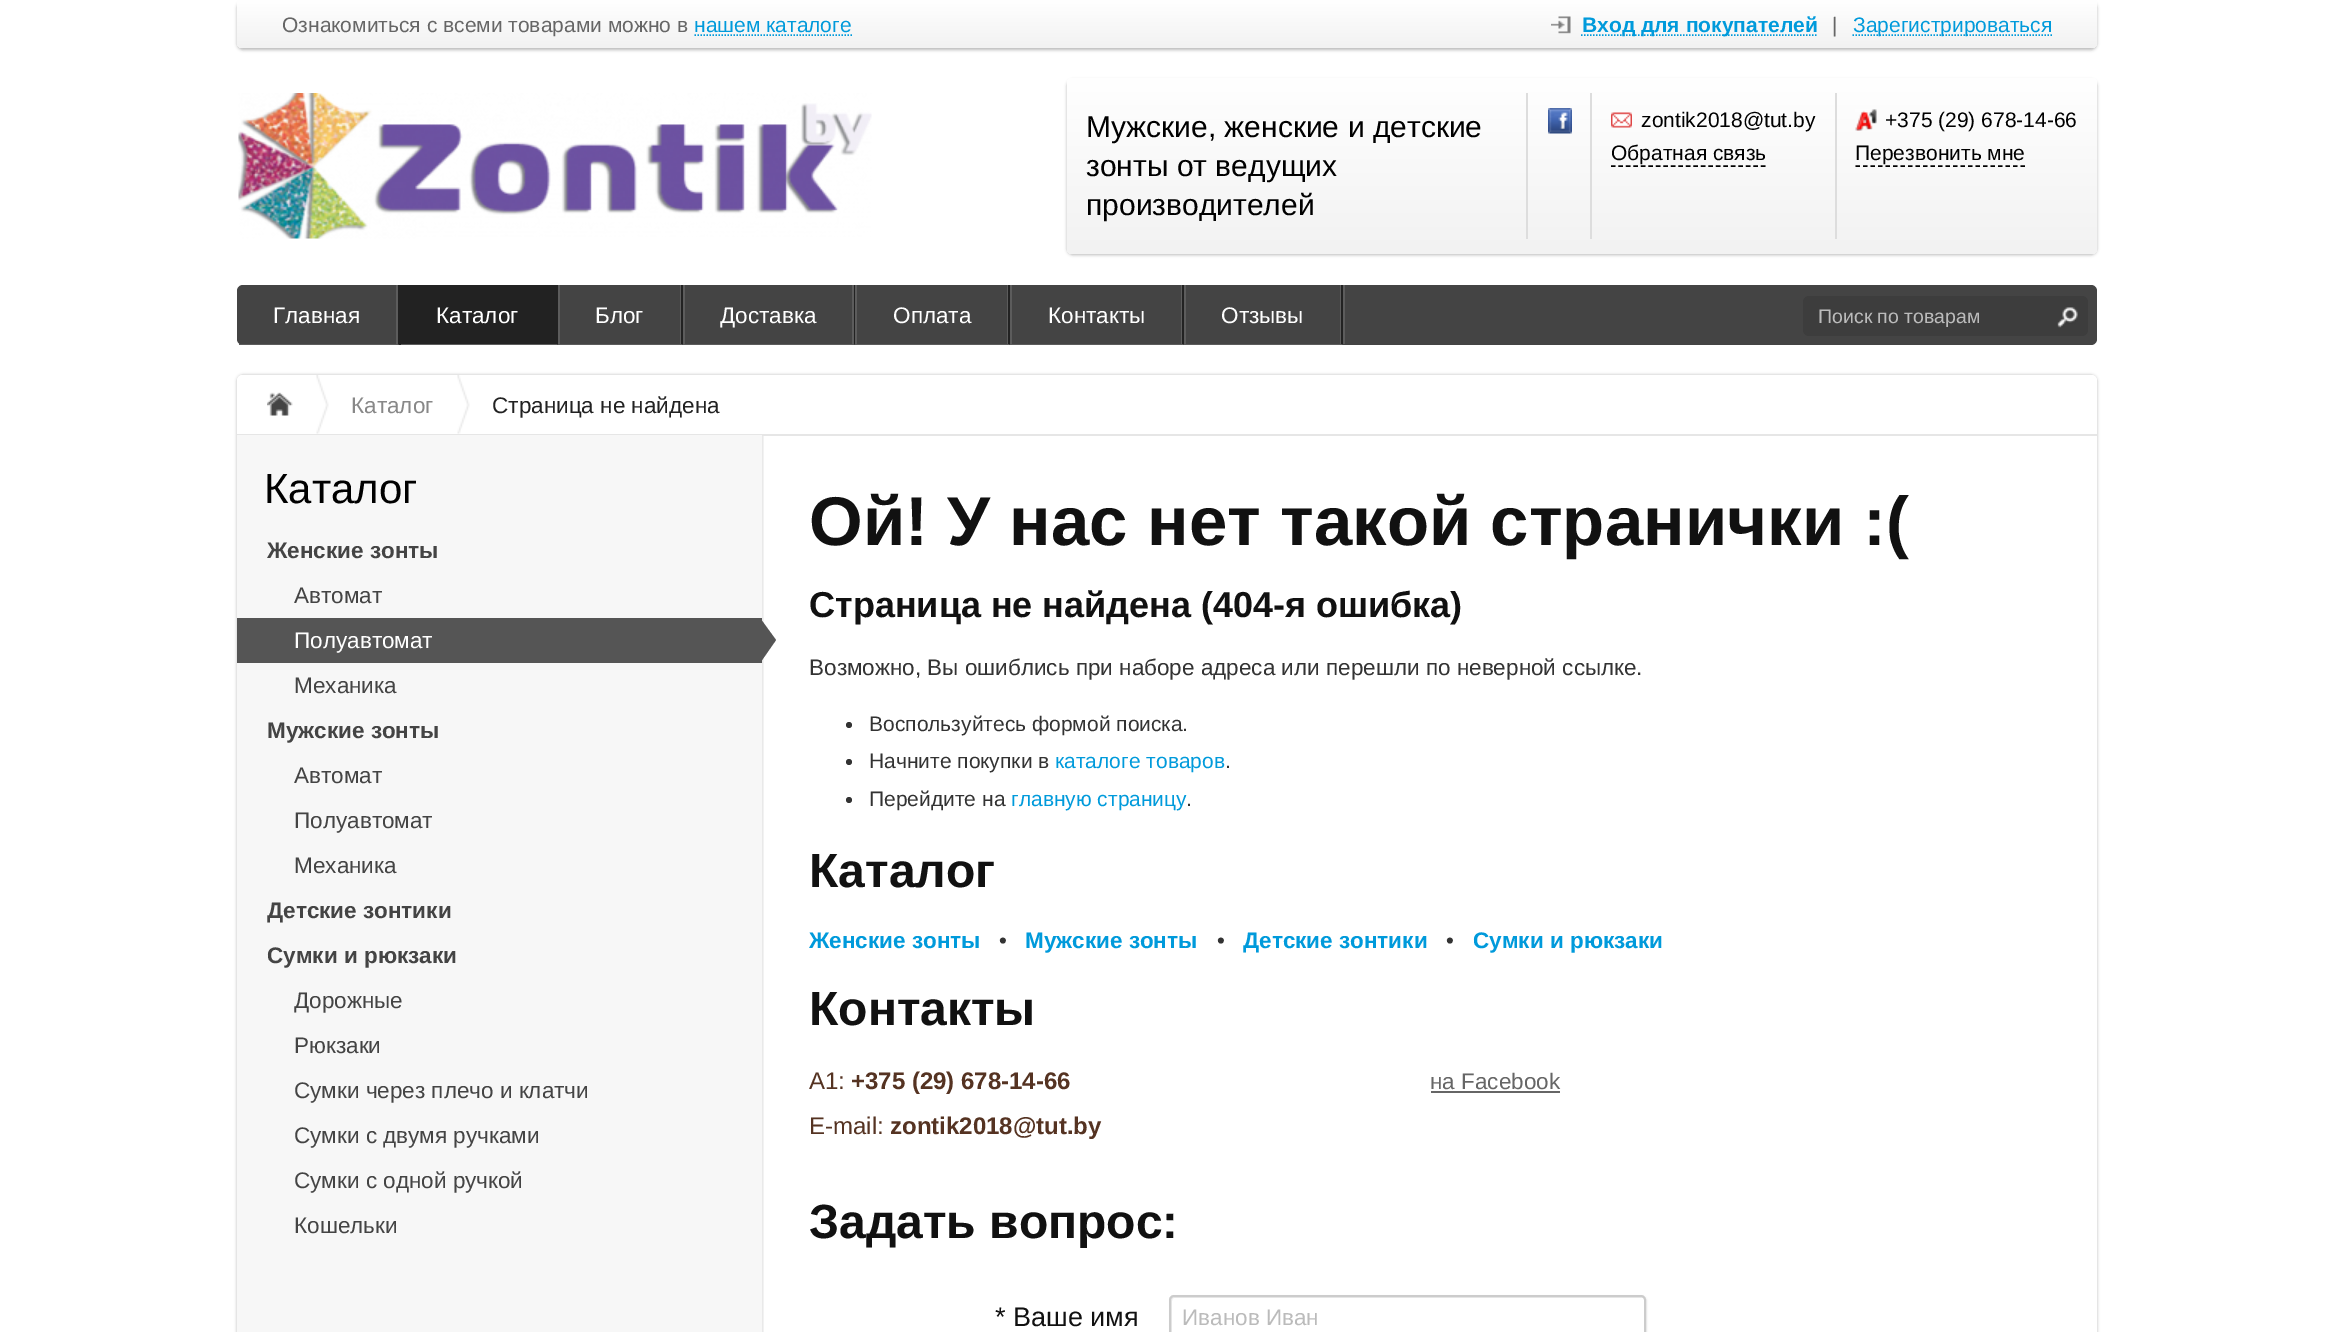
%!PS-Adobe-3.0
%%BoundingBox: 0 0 2333 1332
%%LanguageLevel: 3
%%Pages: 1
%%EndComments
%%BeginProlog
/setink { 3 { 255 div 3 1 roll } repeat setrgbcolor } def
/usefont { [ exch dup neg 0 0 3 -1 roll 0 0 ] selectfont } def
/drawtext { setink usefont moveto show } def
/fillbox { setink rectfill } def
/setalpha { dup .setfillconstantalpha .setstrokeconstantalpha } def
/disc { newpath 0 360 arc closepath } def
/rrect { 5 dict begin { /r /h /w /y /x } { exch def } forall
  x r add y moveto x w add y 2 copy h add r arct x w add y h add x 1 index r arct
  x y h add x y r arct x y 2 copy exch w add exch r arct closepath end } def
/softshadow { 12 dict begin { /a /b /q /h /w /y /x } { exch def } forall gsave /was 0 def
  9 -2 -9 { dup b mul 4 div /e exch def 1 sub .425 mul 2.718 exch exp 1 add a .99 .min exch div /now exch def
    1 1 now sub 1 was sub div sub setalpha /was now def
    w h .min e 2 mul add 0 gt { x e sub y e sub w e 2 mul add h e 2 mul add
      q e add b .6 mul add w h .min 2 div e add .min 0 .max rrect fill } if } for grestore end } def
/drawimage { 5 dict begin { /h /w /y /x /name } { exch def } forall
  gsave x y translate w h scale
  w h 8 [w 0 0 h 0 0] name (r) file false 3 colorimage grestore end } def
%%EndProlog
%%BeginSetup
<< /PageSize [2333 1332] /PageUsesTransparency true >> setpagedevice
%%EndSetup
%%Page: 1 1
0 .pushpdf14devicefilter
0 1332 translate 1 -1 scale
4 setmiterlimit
0 0 2333 1332 255 255 255 fillbox
0 0 0 setink
237 2 1860 48 6 1.5 0.25 softshadow
gsave 237 0 moveto 2097 0 lineto 2097 42 lineto 2097 45.5 2094.5 48 2091 48 curveto 243 48 lineto 239.5 48 237 45.5 237 42 curveto closepath clip newpath
<< /ShadingType 2 /ColorSpace /DeviceRGB /Coords [237 0 237 48] /Extend [true true] /Function << /FunctionType 2 /Domain [0 1] /C0 [1 1 1] /C1 [0.949 0.949 0.949] /N 1 >> >> shfill grestore
(Ознакомиться с всеми товарами можно в) 282 32 /LiberationSans-Regular 21 102 102 102 drawtext
0 154 219 setink
1.5 setlinewidth
[1.5 1.5] 0 setdash
694.5 35 moveto 852 35 lineto stroke
(нашем каталоге) 694 32 /LiberationSans-Regular 21 0 154 219 drawtext
(assets/img1.rgb) 1551 16 20 18 drawimage
1581 35 moveto 1818 35 lineto stroke
(Вход для покупателей) 1582 32 /LiberationSans-Bold 21 0 154 219 drawtext
(|) 1832 32 /LiberationSans-Regular 21 102 102 102 drawtext
0 154 219 setink
1852.5 35 moveto 2052 35 lineto stroke
(Зарегистрироваться) 1853 32 /LiberationSans-Regular 21 0 154 219 drawtext
(assets/img2.rgb) 238 93 634 146 drawimage
0 0 0 setink
1067 80 1030 175 6 1.5 0.25 softshadow
gsave 1067 78 1030 176 6 rrect clip newpath
<< /ShadingType 2 /ColorSpace /DeviceRGB /Coords [1582 78 1582 254] /Extend [true true] /Function << /FunctionType 2 /Domain [0 1] /C0 [1 1 1] /C1 [0.949 0.949 0.949] /N 1 >> >> shfill grestore
1526 93 2 146 221 221 221 fillbox
(Мужские, женские и детские) 1086 137 /LiberationSans-Regular 30 0 0 0 drawtext
(зонты от ведущих) 1086 176 /LiberationSans-Regular 30 0 0 0 drawtext
(производителей) 1086 215 /LiberationSans-Regular 30 0 0 0 drawtext
1590 93 2 146 221 221 221 fillbox
(assets/img3.rgb) 1548 108 24 26 drawimage
1835 93 2 146 221 221 221 fillbox
(assets/img4.rgb) 1611 112 21 16 drawimage
(zontik2018@tut.by) 1641 127 /LiberationSans-Regular 21 0 0 0 drawtext
[4.5 3] 0 setdash
1611 166 moveto 1765.5 166 lineto stroke
(Обратная связь) 1611 160 /LiberationSans-Regular 21 0 0 0 drawtext
(assets/img5.rgb) 1855 109 22 22 drawimage
(+375 \(29\) 678-14-66) 1885 127 /LiberationSans-Regular 21 0 0 0 drawtext
1855.5 166 moveto 2025 166 lineto stroke
(Перезвонить мне) 1855 160 /LiberationSans-Regular 21 0 0 0 drawtext
68 68 68 setink
237 285 1860 60 6 rrect fill
396 285 2 60 92 92 92 fillbox
gsave
237 285 1860 60 6 rrect clip newpath
237 344 161 1 92 92 92 fillbox
grestore
(Главная) 273 323 /LiberationSans-Regular 22.5 255 255 255 drawtext
398 285 1 59 34 34 34 fillbox
401 285 157 59 34 34 34 fillbox
399 344 158 1 92 92 92 fillbox
399 285 2 60 34 34 34 fillbox
(Каталог) 436 323 /LiberationSans-Regular 22.5 255 255 255 drawtext
680 285 2 60 92 92 92 fillbox
558 344 123 1 92 92 92 fillbox
558 285 2 60 92 92 92 fillbox
(Блог) 595 323 /LiberationSans-Regular 22.5 255 255 255 drawtext
681 285 2 59 34 34 34 fillbox
852 285 2 60 92 92 92 fillbox
683 344 171 1 92 92 92 fillbox
683 285 2 60 92 92 92 fillbox
(Доставка) 720 323 /LiberationSans-Regular 22.5 255 255 255 drawtext
854 285 1 59 34 34 34 fillbox
1007 285 2 60 92 92 92 fillbox
855 344 153 1 92 92 92 fillbox
855 285 2 60 92 92 92 fillbox
(Оплата) 893 323 /LiberationSans-Regular 22.5 255 255 255 drawtext
1008 285 2 59 34 34 34 fillbox
1181 285 2 60 92 92 92 fillbox
1010 344 172 1 92 92 92 fillbox
1010 285 2 60 92 92 92 fillbox
(Контакты) 1048 323 /LiberationSans-Regular 22.5 255 255 255 drawtext
1182 285 2 59 34 34 34 fillbox
1340 285 2 60 92 92 92 fillbox
1184 344 157 1 92 92 92 fillbox
1184 285 2 60 92 92 92 fillbox
(Отзывы) 1221 323 /LiberationSans-Regular 22.5 255 255 255 drawtext
1341 285 2 59 34 34 34 fillbox
1343 285 2 59 92 92 92 fillbox
61 61 61 setink
1803 296 285 40 6 rrect fill
(Поиск по товарам) 1818 323 /LiberationSans-Regular 19.5 187 187 187 drawtext
(assets/img6.rgb) 2057 307 21 21 drawimage
0 0 0 setink
237 375 1860 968 6 1.5 0.25 softshadow
255 255 255 setink
237 375 1860 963 6 rrect fill
(assets/img7.rgb) 762 436 2 896 drawimage
243 375 moveto 2091 375 lineto 2094.5 375 2097 377.5 2097 381 curveto 2097 435 lineto 237 435 lineto 237 381 lineto 237 377.5 239.5 375 243 375 curveto closepath fill
237 434 1860 2 230 230 230 fillbox
(assets/img8.rgb) 267 392 26 24 drawimage
(assets/img9.rgb) 316 375 13 59 drawimage
(Каталог) 351 413 /LiberationSans-Regular 22.5 136 136 136 drawtext
(assets/img9.rgb) 457 375 13 59 drawimage
(Страница не найдена) 492 413 /LiberationSans-Regular 22.5 34 34 34 drawtext
237 435 525 897 247 247 247 fillbox
(Каталог) 264 503 /LiberationSans-Regular 42 0 0 0 drawtext
(Женские зонты) 267 558 /LiberationSans-Bold 22.5 68 68 68 drawtext
(Автомат) 294 603 /LiberationSans-Regular 22.5 68 68 68 drawtext
237 618 525 45 85 85 85 fillbox
(Полуавтомат) 294 648 /LiberationSans-Regular 22.5 255 255 255 drawtext
85 85 85 setink
760 663 moveto 760 618 lineto 776 640 lineto closepath fill
(Механика) 294 693 /LiberationSans-Regular 22.5 68 68 68 drawtext
(Мужские зонты) 267 738 /LiberationSans-Bold 22.5 68 68 68 drawtext
(Автомат) 294 783 /LiberationSans-Regular 22.5 68 68 68 drawtext
(Полуавтомат) 294 828 /LiberationSans-Regular 22.5 68 68 68 drawtext
(Механика) 294 873 /LiberationSans-Regular 22.5 68 68 68 drawtext
(Детские зонтики) 267 918 /LiberationSans-Bold 22.5 68 68 68 drawtext
(Сумки и рюкзаки) 267 963 /LiberationSans-Bold 22.5 68 68 68 drawtext
(Дорожные) 294 1008 /LiberationSans-Regular 22.5 68 68 68 drawtext
(Рюкзаки) 294 1053 /LiberationSans-Regular 22.5 68 68 68 drawtext
(Сумки через плечо и клатчи) 294 1098 /LiberationSans-Regular 22.5 68 68 68 drawtext
(Сумки с двумя ручками) 294 1143 /LiberationSans-Regular 22.5 68 68 68 drawtext
(Сумки с одной ручкой) 294 1188 /LiberationSans-Regular 22.5 68 68 68 drawtext
(Кошельки) 294 1233 /LiberationSans-Regular 22.5 68 68 68 drawtext
(Ой! У нас нет такой странички :\() 809 545 /LiberationSans-Bold 69 17 17 17 drawtext
(Страница не найдена \(404-я ошибка\)) 809 617 /LiberationSans-Bold 36 17 17 17 drawtext
(Возможно, Вы ошиблись при наборе адреса или перешли по неверной ссылке.) 809 675 /LiberationSans-Regular 22.5 51 51 51 drawtext
849 725 3 disc fill
(Воспользуйтесь формой поиска.) 869 731 /LiberationSans-Regular 21 51 51 51 drawtext
849 762 3 disc fill
(Начните покупки в) 869 768 /LiberationSans-Regular 21 51 51 51 drawtext
(каталоге товаров) 1055 768 /LiberationSans-Regular 21 0 154 219 drawtext
(.) 1225 768 /LiberationSans-Regular 21 51 51 51 drawtext
849 800 3 disc fill
(Перейдите на) 869 806 /LiberationSans-Regular 21 51 51 51 drawtext
(главную страницу) 1011 806 /LiberationSans-Regular 21 0 154 219 drawtext
(.) 1186 806 /LiberationSans-Regular 21 51 51 51 drawtext
(Каталог) 809 887 /LiberationSans-Bold 48 17 17 17 drawtext
(Женские зонты) 809 948 /LiberationSans-Bold 22.5 0 154 219 drawtext
(•) 999 948 /LiberationSans-Regular 22.5 51 51 51 drawtext
(Мужские зонты) 1025 948 /LiberationSans-Bold 22.5 0 154 219 drawtext
(•) 1217 948 /LiberationSans-Regular 22.5 51 51 51 drawtext
(Детские зонтики) 1243 948 /LiberationSans-Bold 22.5 0 154 219 drawtext
(•) 1446 948 /LiberationSans-Regular 22.5 51 51 51 drawtext
(Сумки и рюкзаки) 1473 948 /LiberationSans-Bold 22.5 0 154 219 drawtext
(Контакты) 809 1025 /LiberationSans-Bold 48 17 17 17 drawtext
(A1:) 809 1089 /LiberationSans-Regular 24 85 51 34 drawtext
(+375 \(29\) 678-14-66) 851 1089 /LiberationSans-Bold 24 85 51 34 drawtext
(E-mail:) 809 1134 /LiberationSans-Regular 24 85 51 34 drawtext
(zontik2018@tut.by) 890 1134 /LiberationSans-Bold 24 85 51 34 drawtext
(на Facebook) 1430 1089 /LiberationSans-Regular 22.5 102 102 102 drawtext
1431 1091 129 2 102 102 102 fillbox
(Задать вопрос:) 809 1238 /LiberationSans-Bold 48 17 17 17 drawtext
(* Ваше имя) 995 1326 /LiberationSans-Regular 27 17 17 17 drawtext
238 238 238 setink
1170 1296 477 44 5 1 1 softshadow
255 255 255 setink
1169 1295 477 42 5 rrect fill
238 238 238 setink
1174 1298 moveto 1644 1298 lineto 1644 1297 1642 1296 1641 1296 curveto 1173 1296 lineto 1171 1296 1170 1297 1170 1299 curveto 1170 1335 lineto 1170 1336 1171 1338 1172 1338 curveto 1172 1306 lineto 1172 1306 1171 1298 1174 1298 curveto closepath fill
204 204 204 setink
2 setlinewidth
[] 0 setdash
1170 1296 475 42 4 rrect stroke
(Иванов Иван) 1182 1325 /LiberationSans-Regular 22.5 187 187 187 drawtext
.poppdf14devicefilter showpage
%%EOF
